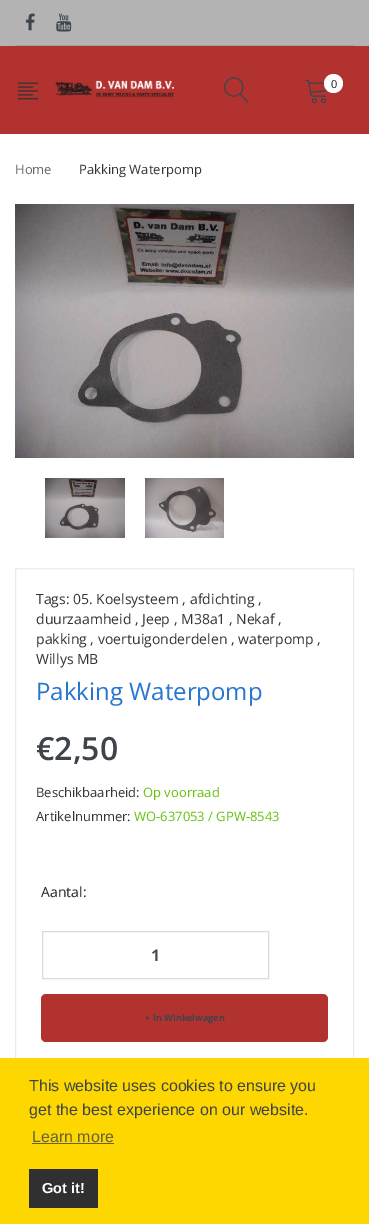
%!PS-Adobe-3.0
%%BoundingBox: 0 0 369 1224
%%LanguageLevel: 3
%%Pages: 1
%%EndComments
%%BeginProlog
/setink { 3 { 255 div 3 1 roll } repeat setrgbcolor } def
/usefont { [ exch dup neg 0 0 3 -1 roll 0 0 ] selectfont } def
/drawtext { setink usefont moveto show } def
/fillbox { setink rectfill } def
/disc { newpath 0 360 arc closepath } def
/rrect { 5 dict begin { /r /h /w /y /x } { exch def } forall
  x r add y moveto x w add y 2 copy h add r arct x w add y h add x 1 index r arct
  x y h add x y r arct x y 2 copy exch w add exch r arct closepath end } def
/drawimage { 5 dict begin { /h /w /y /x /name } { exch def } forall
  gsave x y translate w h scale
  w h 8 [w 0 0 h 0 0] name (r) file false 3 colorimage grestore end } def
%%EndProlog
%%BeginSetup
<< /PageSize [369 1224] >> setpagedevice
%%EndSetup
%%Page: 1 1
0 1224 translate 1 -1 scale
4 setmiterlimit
0 0 369 1224 255 255 255 fillbox
0 0 369 46 179 179 179 fillbox
15 45 339 1 161 161 161 fillbox
(assets/img1.rgb) 25 13 10 18 drawimage
(assets/img2.rgb) 56 13 16 19 drawimage
0 46 369 88 178 50 47 fillbox
(assets/img3.rgb) 224 77 25 27 drawimage
(assets/img4.rgb) 17 82 22 18 drawimage
(assets/img5.rgb) 55 80 119 18 drawimage
(assets/img6.rgb) 305 79 22 25 drawimage
255 255 255 setink
333.5 83.5 9.5 disc fill
(0) 331 88 /OpenSans-Regular 11 34 34 34 drawtext
(Home) 15 174 /OpenSans-Regular 13 102 102 102 drawtext
(Pakking Waterpomp) 79 174 /OpenSans-Regular 13 51 51 51 drawtext
(assets/img7.rgb) 15 204 339 254 drawimage
(assets/img8.rgb) 45 478 80 60 drawimage
(assets/img9.rgb) 145 478 79 60 drawimage
235 235 235 setink
15.5 568.5 338 514 rectstroke
(Tags:) 36 604 /OpenSans-Regular 14 51 51 51 drawtext
(05. Koelsysteem) 73 604 /OpenSans-Regular 14 51 51 51 drawtext
(,) 182 604 /OpenSans-Regular 14 51 51 51 drawtext
(afdichting) 190 604 /OpenSans-Regular 14 51 51 51 drawtext
(,) 258 604 /OpenSans-Regular 14 51 51 51 drawtext
(duurzaamheid) 36 624 /OpenSans-Regular 14 51 51 51 drawtext
(,) 135 624 /OpenSans-Regular 14 51 51 51 drawtext
(Jeep) 142 624 /OpenSans-Regular 14 51 51 51 drawtext
(,) 174 624 /OpenSans-Regular 14 51 51 51 drawtext
(M38a1) 181 624 /OpenSans-Regular 14 51 51 51 drawtext
(,) 229 624 /OpenSans-Regular 14 51 51 51 drawtext
(Nekaf) 236 624 /OpenSans-Regular 14 51 51 51 drawtext
(,) 278 624 /OpenSans-Regular 14 51 51 51 drawtext
(pakking) 36 644 /OpenSans-Regular 14 51 51 51 drawtext
(,) 90 644 /OpenSans-Regular 14 51 51 51 drawtext
(voertuigonderdelen) 98 644 /OpenSans-Regular 14 51 51 51 drawtext
(,) 231 644 /OpenSans-Regular 14 51 51 51 drawtext
(waterpomp) 238 644 /OpenSans-Regular 14 51 51 51 drawtext
(,) 317 644 /OpenSans-Regular 14 51 51 51 drawtext
(Willys MB) 36 664 /OpenSans-Regular 14 51 51 51 drawtext
(Pakking Waterpomp) 36 700 /OpenSans-Regular 24 39 119 208 drawtext
(€2,50) 36 760 /OpenSans-SemiBold 32 62 68 74 drawtext
(Beschikbaarheid:) 36 797 /OpenSans-Regular 13 51 51 51 drawtext
(Op voorraad) 143 797 /OpenSans-Regular 13 103 193 10 drawtext
(Artikelnummer:) 36 821 /OpenSans-Regular 13 51 51 51 drawtext
(WO-637053 / GPW-8543) 134 821 /OpenSans-Regular 13 103 193 10 drawtext
(Aantal:) 41 897 /OpenSans-Regular 14 34 34 34 drawtext
219 219 219 setink
42.5 931.5 226 47 rectstroke
(1) 151 961 /OpenSans-Bold 16 76 76 76 drawtext
178 50 47 setink
41 994 287 48 5 rrect fill
(+) 145 1021 /OpenSans-Bold 9 62 68 74 drawtext
(In Winkelwagen) 153 1021 /OpenSans-Bold 9 62 68 74 drawtext
0 1058 369 166 254 215 0 fillbox
(This website uses cookies to ensure you) 29 1091 /LiberationSans-Regular 16 62 68 74 drawtext
(get the best experience on our website.) 29 1115 /LiberationSans-Regular 16 62 68 74 drawtext
(Learn more) 32 1142 /LiberationSans-Regular 16 100 97 59 drawtext
32 1143 82 1 100 97 59 fillbox
29 1169 69 39 48 48 48 fillbox
(Got it!) 42 1193 /LiberationSans-Bold 14.5 255 255 255 drawtext
showpage
%%EOF
